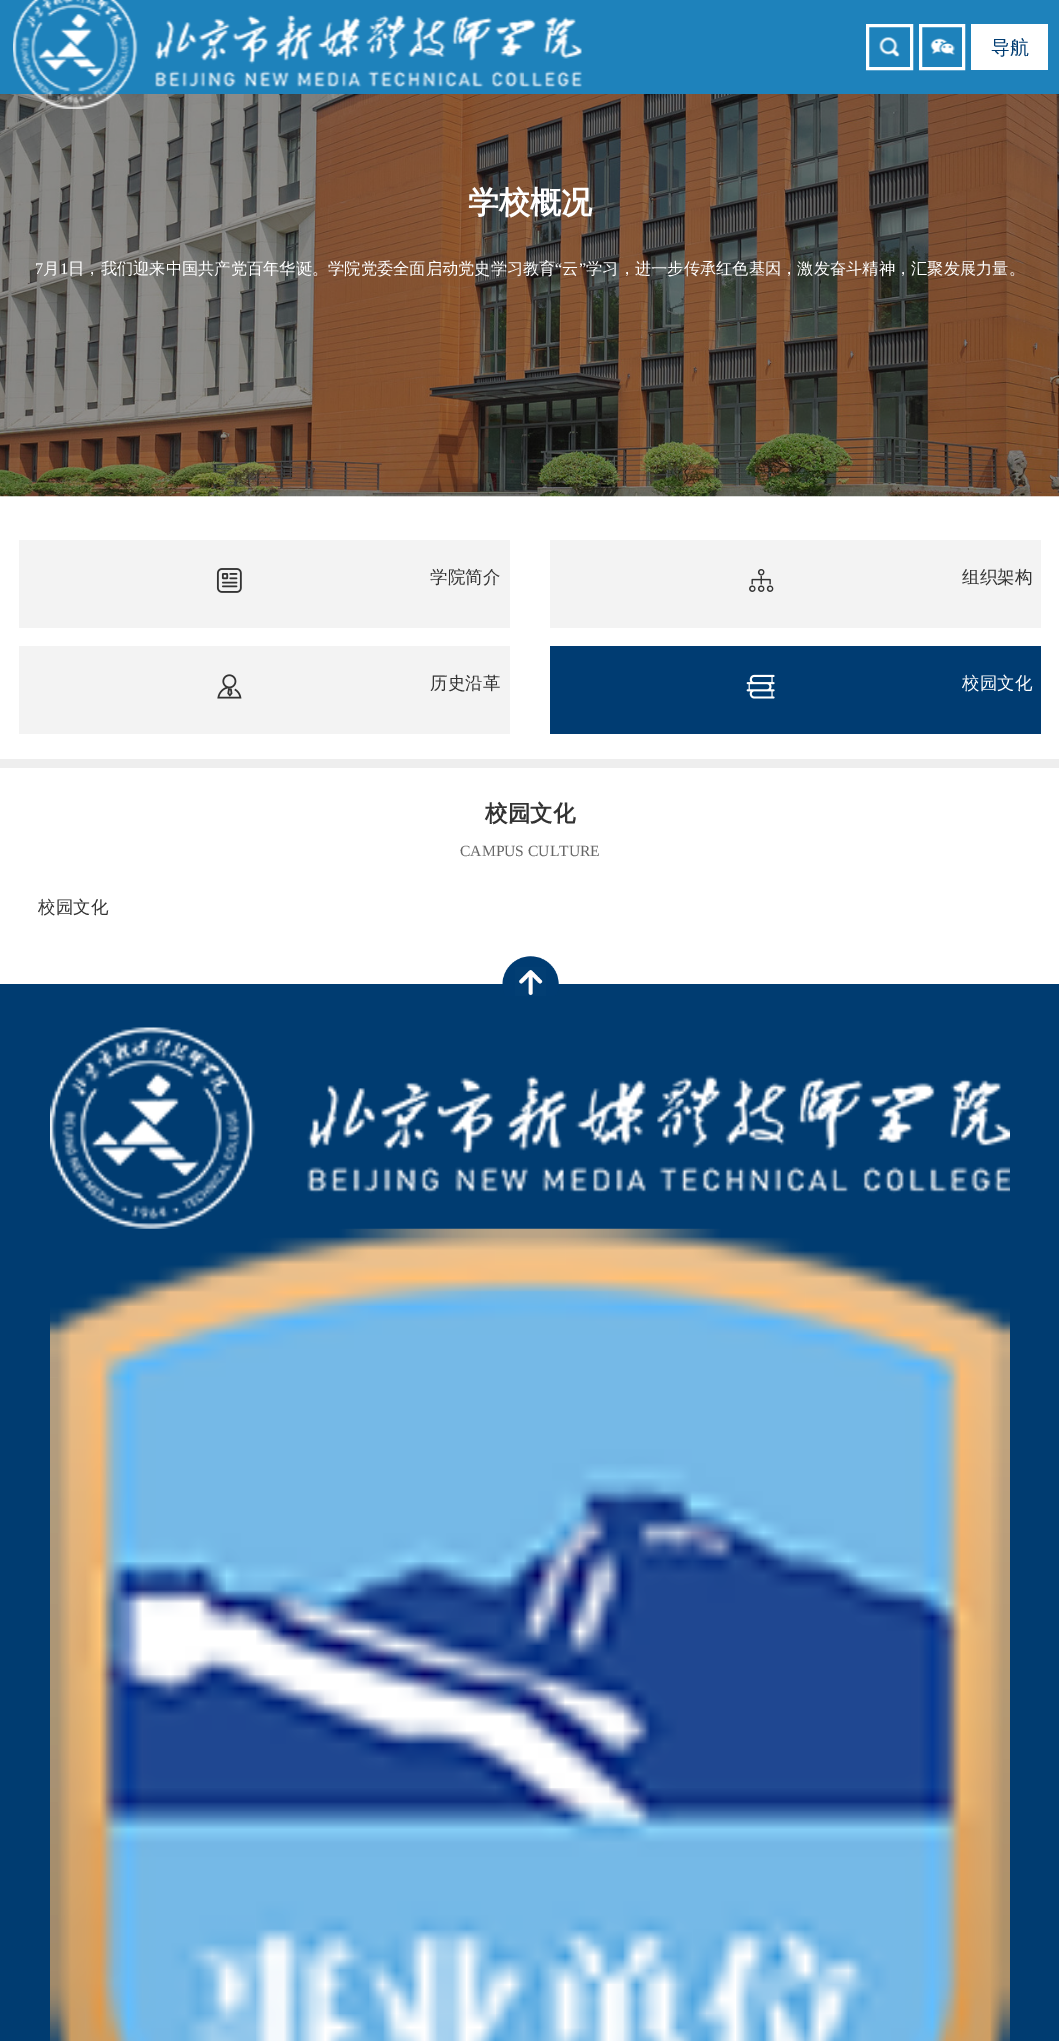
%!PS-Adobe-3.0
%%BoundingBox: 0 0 1059 2041
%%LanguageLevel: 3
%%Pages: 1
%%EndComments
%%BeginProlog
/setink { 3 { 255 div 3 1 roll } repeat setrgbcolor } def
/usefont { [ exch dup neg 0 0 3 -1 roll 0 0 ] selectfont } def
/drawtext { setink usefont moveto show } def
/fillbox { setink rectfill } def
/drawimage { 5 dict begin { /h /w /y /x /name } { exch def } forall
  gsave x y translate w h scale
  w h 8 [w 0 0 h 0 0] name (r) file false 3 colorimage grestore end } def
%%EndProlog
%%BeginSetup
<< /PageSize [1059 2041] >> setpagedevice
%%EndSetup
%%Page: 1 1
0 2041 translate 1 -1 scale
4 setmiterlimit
0 0 1059 2041 255 255 255 fillbox
0 0 1059 94 30 130 187 fillbox
(assets/img4.rgb) 0 94 1059 403 drawimage
(assets/img1.rgb) 13 0 569 109 drawimage
255 255 255 setink
3 setlinewidth
867.5 25.5 44 43 rectstroke
(assets/img2.rgb) 879 37 21 20 drawimage
920.5 25.5 43 43 rectstroke
(assets/img3.rgb) 930 38 25 17 drawimage
971 24 77 46 255 255 255 fillbox
(导航) 991 54 /WenQuanYiZenHei-Medium 19 0 60 114 drawtext
(学校概况) 468 213 /WenQuanYiZenHei-Bold 31 255 255 255 drawtext
(7) 35 274 /LiberationSerif-Regular 16.25 255 255 255 drawtext
(月) 43 274 /WenQuanYiZenHei-Medium 16.25 255 255 255 drawtext
(1) 60 274 /LiberationSerif-Regular 16.25 255 255 255 drawtext
(日，我们迎来中国共产党百年华诞。学院党委全面启动党史学习教育) 68 274 /WenQuanYiZenHei-Medium 16.25 255 255 255 drawtext
(“) 555 274 /LiberationSerif-Regular 16.25 255 255 255 drawtext
(云) 562 274 /WenQuanYiZenHei-Medium 16.25 255 255 255 drawtext
(”) 579 274 /LiberationSerif-Regular 16.25 255 255 255 drawtext
(学习，进一步传承红色基因，激发奋斗精神，汇聚发展力量。) 586 274 /WenQuanYiZenHei-Medium 16.25 255 255 255 drawtext
19 540 491 88 243 243 243 fillbox
(assets/img5.rgb) 216 568 26 25 drawimage
(学院简介) 430 583 /WenQuanYiZenHei-Medium 17.5 51 51 51 drawtext
550 540 491 88 243 243 243 fillbox
(assets/img6.rgb) 749 569 25 23 drawimage
(组织架构) 962 583 /WenQuanYiZenHei-Medium 17.5 51 51 51 drawtext
19 646 491 88 243 243 243 fillbox
(assets/img7.rgb) 217 674 25 25 drawimage
(历史沿革) 430 689 /WenQuanYiZenHei-Medium 17.5 51 51 51 drawtext
550 646 491 88 0 60 114 fillbox
(assets/img8.rgb) 746 674 29 25 drawimage
(校园文化) 962 689 /WenQuanYiZenHei-Medium 17.5 255 255 255 drawtext
0 759 1059 9 238 238 238 fillbox
(校园文化) 485 821 /WenQuanYiZenHei-Bold 22.5 51 51 51 drawtext
(CAMPUS CULTURE) 460 856 /LiberationSerif-Regular 15.6 102 102 102 drawtext
(校园文化) 38 913 /WenQuanYiZenHei-Medium 17.5 51 51 51 drawtext
0 984 1059 1057 0 60 113 fillbox
(assets/img9.rgb) 502 956 57 40 drawimage
(assets/img10.rgb) 50 1027 960 202 drawimage
(assets/img11.rgb) 50 1228 960 813 drawimage
showpage
%%EOF
